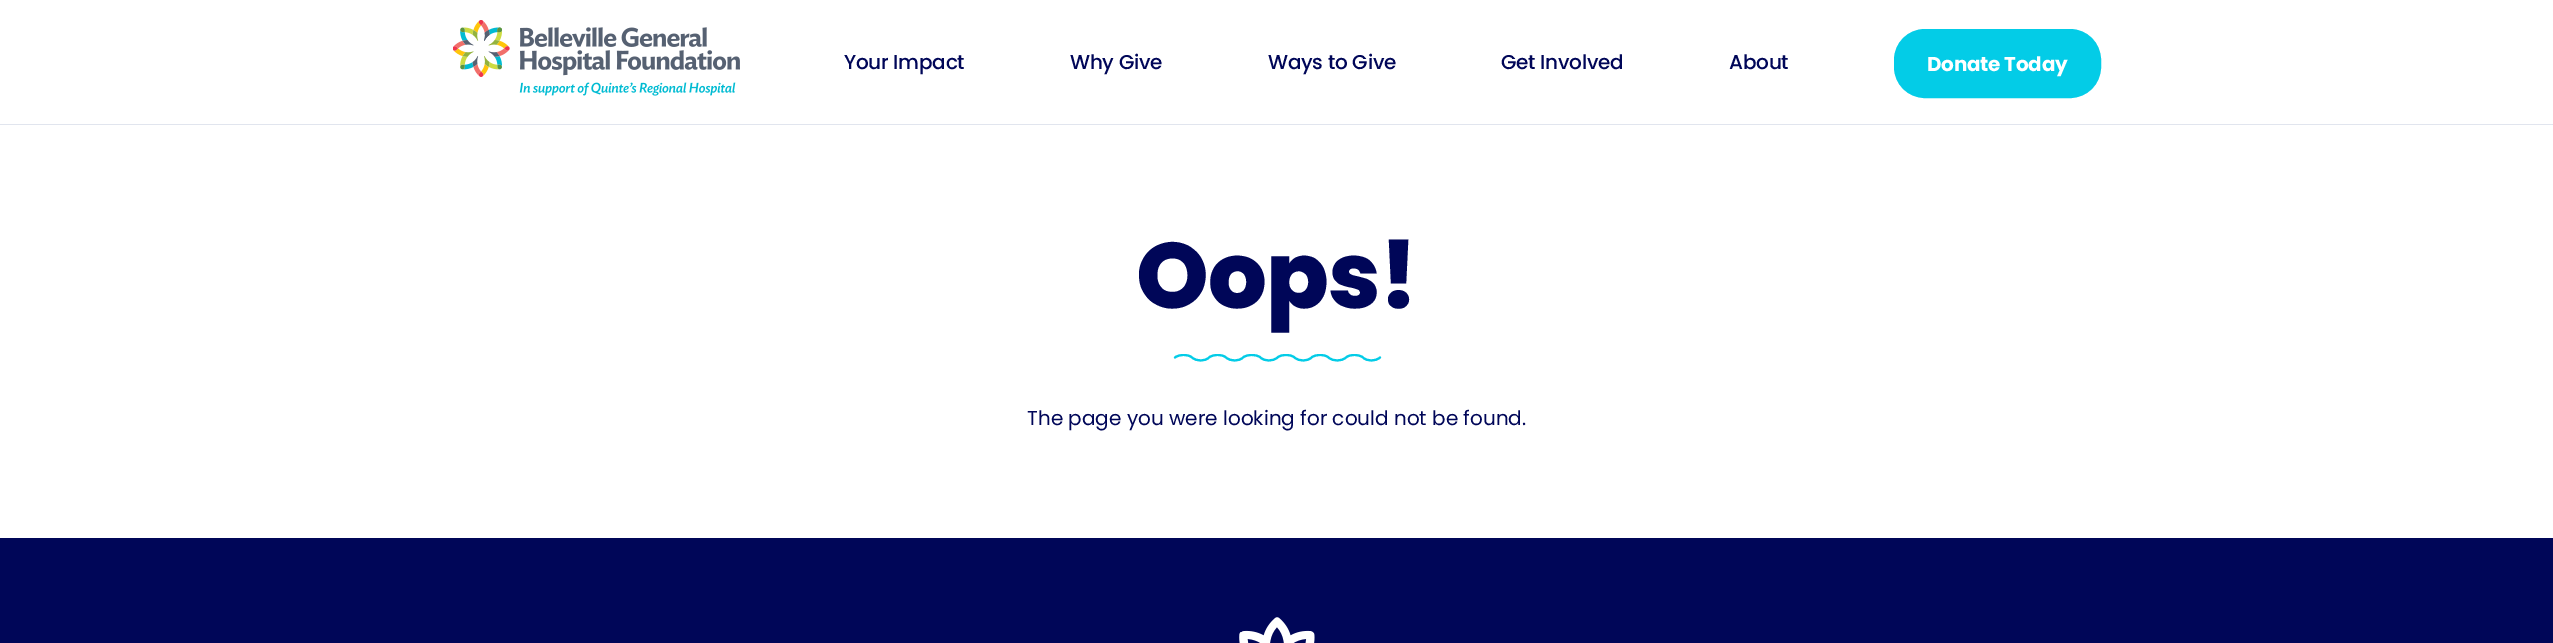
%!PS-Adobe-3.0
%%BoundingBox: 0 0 2553 643
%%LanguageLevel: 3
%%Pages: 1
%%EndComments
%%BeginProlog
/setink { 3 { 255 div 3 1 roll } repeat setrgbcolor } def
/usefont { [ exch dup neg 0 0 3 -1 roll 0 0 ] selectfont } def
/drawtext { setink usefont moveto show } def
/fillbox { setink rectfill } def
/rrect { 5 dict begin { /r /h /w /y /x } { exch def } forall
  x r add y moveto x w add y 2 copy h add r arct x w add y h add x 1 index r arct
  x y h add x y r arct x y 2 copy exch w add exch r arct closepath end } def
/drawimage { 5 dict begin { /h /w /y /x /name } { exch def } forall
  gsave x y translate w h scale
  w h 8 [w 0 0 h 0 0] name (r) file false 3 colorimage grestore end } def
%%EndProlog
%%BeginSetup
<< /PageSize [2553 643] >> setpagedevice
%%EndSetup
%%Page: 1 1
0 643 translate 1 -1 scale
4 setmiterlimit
0 0 2553 643 255 255 255 fillbox
0 124 2553 1 225 229 238 fillbox
(assets/img1.rgb) 453 20 287 76 drawimage
/Poppins-Medium 20 usefont
0 6 88 setink
844 69 moveto -0.25 0 (Your Impact) ashow
1070 69 moveto -0.25 0 (Why Give) ashow
1268 69 moveto -0.25 0 (Ways to Give) ashow
1501 69 moveto -0.25 0 (Get Involved) ashow
1729 69 moveto -0.25 0 (About) ashow
3 204 231 setink
1895.5 30.5 204 66 29.5 rrect gsave fill grestore
3 setlinewidth
stroke
/Poppins-Bold 20 usefont
255 255 255 setink
1927 71 moveto -0.25 0 (Donate Today) ashow
/Poppins-ExtraBold 92.5 usefont
0 6 88 setink
1136 308 moveto -1 0 (Oops!) ashow
gsave
1171 354 213 9 rectclip
3 204 231 setink
2.1 setlinewidth
1 setlinecap
1380 357.5 moveto 1375.5 361.5 1367 361.5 1363 357.5 curveto 1358.5 354 1350 354 1346 357.5 curveto 1341.5 361.5 1333 361.5 1328.5 357.5 curveto 1324.5 354 1316 354 1311.5 357.5 curveto 1307.5 361.5 1299 361.5 1294.5 357.5 curveto 1290.5 354 1281.5 354 1277.5 357.5 curveto 1273 361.5 1264.5 361.5 1260.5 357.5 curveto 1256 354 1247.5 354 1243 357.5 curveto 1239 361.5 1230.5 361.5 1226 357.5 curveto 1222 354 1213.5 354 1209 357.5 curveto 1205 361.5 1196.5 361.5 1192 357.5 curveto 1188 354 1179.5 354 1175 357.5 curveto stroke
grestore
(The page you were looking for could not be found.) 1027 425 /Poppins-Regular 20 0 6 88 drawtext
0 538 2553 105 0 6 88 fillbox
(assets/img2.rgb) 1239 617 76 26 drawimage
showpage
%%EOF
